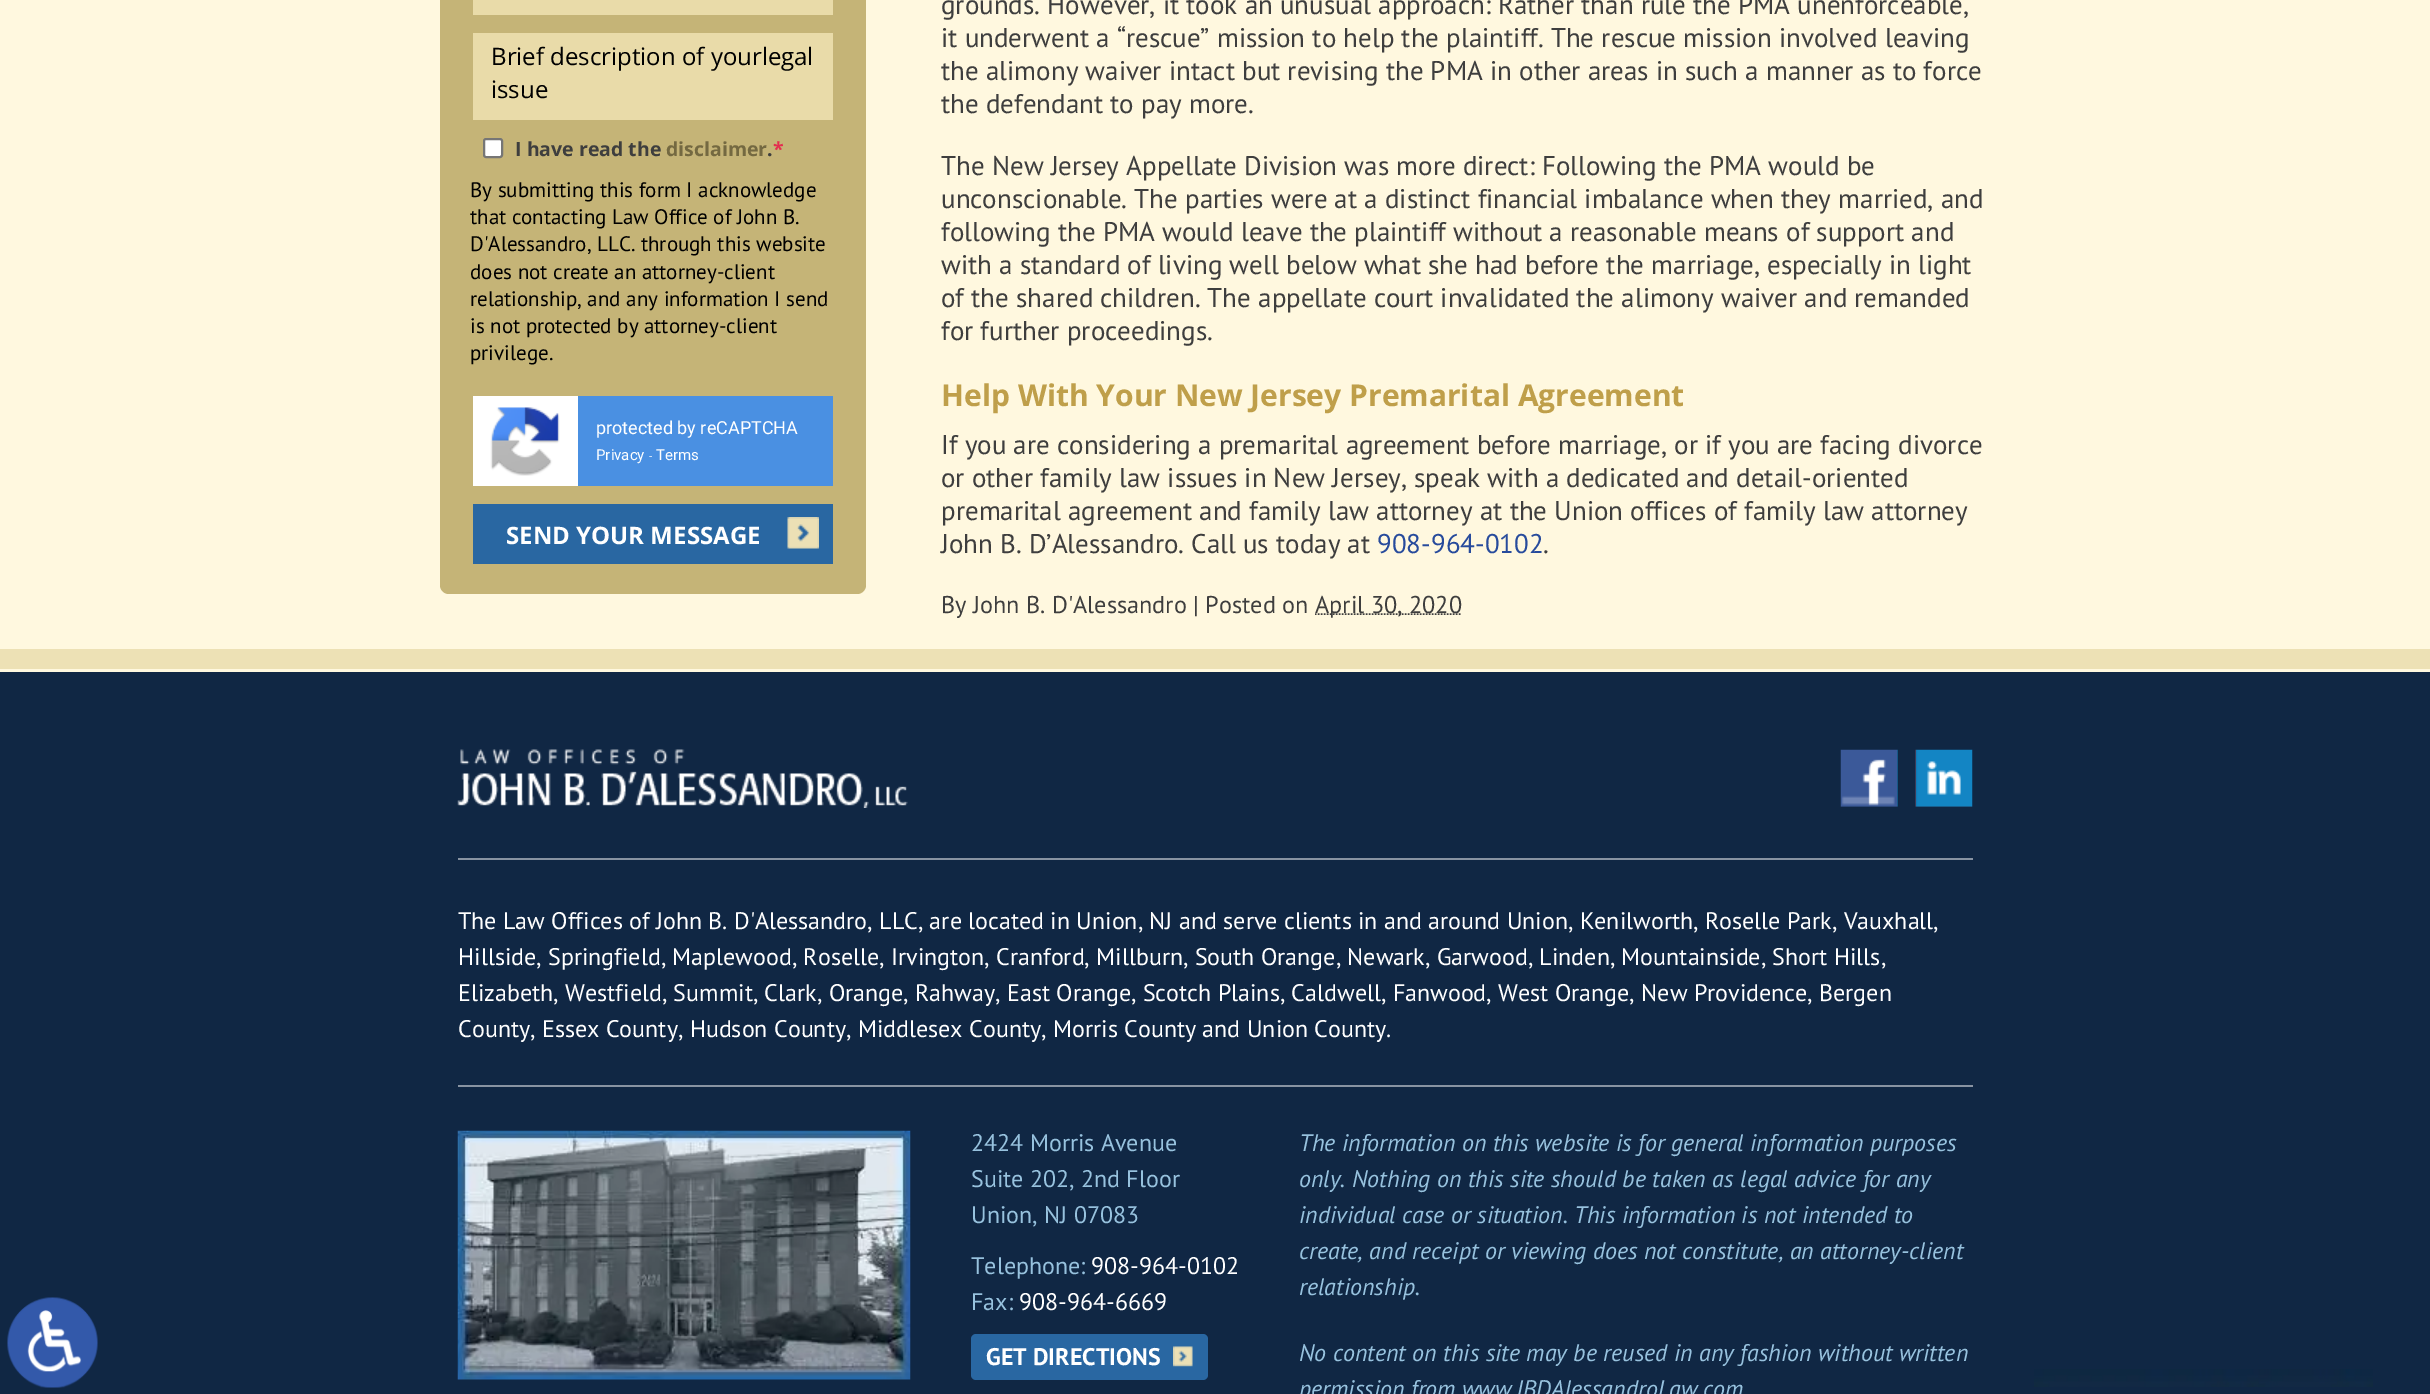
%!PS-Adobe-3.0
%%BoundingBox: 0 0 2430 1394
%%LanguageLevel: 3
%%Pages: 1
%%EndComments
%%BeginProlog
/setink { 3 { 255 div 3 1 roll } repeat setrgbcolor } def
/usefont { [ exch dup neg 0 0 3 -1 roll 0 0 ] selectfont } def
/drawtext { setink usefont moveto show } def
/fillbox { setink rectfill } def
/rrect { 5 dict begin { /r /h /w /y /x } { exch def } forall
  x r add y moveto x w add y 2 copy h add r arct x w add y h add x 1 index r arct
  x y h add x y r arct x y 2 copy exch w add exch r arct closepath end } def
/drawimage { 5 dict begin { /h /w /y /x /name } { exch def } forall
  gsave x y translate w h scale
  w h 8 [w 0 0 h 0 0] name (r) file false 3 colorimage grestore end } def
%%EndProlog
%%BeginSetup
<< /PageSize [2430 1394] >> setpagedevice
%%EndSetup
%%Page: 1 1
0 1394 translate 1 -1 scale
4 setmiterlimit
0 0 2430 1394 255 248 223 fillbox
0 649 2430 20 237 225 181 fillbox
197 180 119 setink
440 -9 426 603 9 rrect fill
473 0 360 15 233 219 169 fillbox
473 33 360 87 233 219 169 fillbox
(Brief description of yourlegal) 491 65 /OpenSans-Regular 24 0 0 0 drawtext
(issue) 491 98 /OpenSans-Regular 24 0 0 0 drawtext
255 255 255 setink
484 139 18 18 2 rrect gsave fill grestore
118 118 118 setink
2 setlinewidth
stroke
(I have read the) 515 156 /OpenSans-Bold 19.5 62 62 62 drawtext
(disclaimer) 666 156 /OpenSans-Bold 19.5 116 105 65 drawtext
(*) 773 156 /OpenSans-Bold 19.5 228 46 79 drawtext
(.) 767 156 /OpenSans-Bold 19.5 62 62 62 drawtext
(By submitting this form I acknowledge) 470 197 /PTSans-Regular 21 0 0 0 drawtext
(that contacting Law Office of John B.) 470 224 /PTSans-Regular 21 0 0 0 drawtext
(D'Alessandro, LLC. through this website) 470 251 /PTSans-Regular 21 0 0 0 drawtext
(does not create an attorney-client) 470 279 /PTSans-Regular 21 0 0 0 drawtext
(relationship, and any information I send) 470 306 /PTSans-Regular 21 0 0 0 drawtext
(is not protected by attorney-client) 470 333 /PTSans-Regular 21 0 0 0 drawtext
(privilege.) 470 360 /PTSans-Regular 21 0 0 0 drawtext
578 396 255 90 74 144 226 fillbox
473 396 105 90 255 255 255 fillbox
(assets/img1.rgb) 490 407 70 69 drawimage
(protected by reCAPTCHA) 596 434 /Roboto-Regular 18 255 255 255 drawtext
(Privacy) 596 460 /Roboto-Regular 15 255 255 255 drawtext
(-) 649 460 /Roboto-Regular 12 255 255 255 drawtext
(Terms) 656 460 /Roboto-Regular 15 255 255 255 drawtext
473 504 360 60 41 103 162 fillbox
(assets/img2.rgb) 787 517 32 32 drawimage
(SEND YOUR MESSAGE) 506 544 /OpenSans-Bold 24 255 255 255 drawtext
(grounds. However, it took an unusual approach: Rather than rule the PMA unenforceable,) 941 14 /PTSans-Regular 27 62 62 62 drawtext
(it underwent a “rescue” mission to help the plaintiff. The rescue mission involved leaving) 941 47 /PTSans-Regular 27 62 62 62 drawtext
(the alimony waiver intact but revising the PMA in other areas in such a manner as to force) 941 80 /PTSans-Regular 27 62 62 62 drawtext
(the defendant to pay more.) 941 113 /PTSans-Regular 27 62 62 62 drawtext
(The New Jersey Appellate Division was more direct: Following the PMA would be) 941 175 /PTSans-Regular 27 62 62 62 drawtext
(unconscionable. The parties were at a distinct financial imbalance when they married, and) 941 208 /PTSans-Regular 27 62 62 62 drawtext
(following the PMA would leave the plaintiff without a reasonable means of support and) 941 241 /PTSans-Regular 27 62 62 62 drawtext
(with a standard of living well below what she had before the marriage, especially in light) 941 274 /PTSans-Regular 27 62 62 62 drawtext
(of the shared children. The appellate court invalidated the alimony waiver and remanded) 941 307 /PTSans-Regular 27 62 62 62 drawtext
(for further proceedings.) 941 340 /PTSans-Regular 27 62 62 62 drawtext
(Help With Your New Jersey Premarital Agreement) 941 406 /OpenSans-Bold 30 191 159 74 drawtext
(If you are considering a premarital agreement before marriage, or if you are facing divorce) 941 454 /PTSans-Regular 27 62 62 62 drawtext
(or other family law issues in New Jersey, speak with a dedicated and detail-oriented) 941 487 /PTSans-Regular 27 62 62 62 drawtext
(premarital agreement and family law attorney at the Union offices of family law attorney) 941 520 /PTSans-Regular 27 62 62 62 drawtext
(John B. D’Alessandro. Call us today at) 941 553 /PTSans-Regular 27 62 62 62 drawtext
(908-964-0102) 1377 553 /PTSans-Regular 27 39 75 156 drawtext
(.) 1543 553 /PTSans-Regular 27 62 62 62 drawtext
(By John B. D'Alessandro | Posted on) 941 613 /PTSans-Regular 24.25 62 62 62 drawtext
1.5 setlinewidth
[1.5 1.5] 0 setdash
1315 614 moveto 1462 614 lineto stroke
(April 30, 2020) 1315 613 /PTSans-Regular 24.25 62 62 62 drawtext
0 672 2430 722 16 39 68 fillbox
(assets/img3.rgb) 7 1297 91 91 drawimage
(assets/img4.rgb) 2034 1369 339 18 drawimage
458 858 1515 2 136 147 162 fillbox
(assets/img5.rgb) 457 749 451 59 drawimage
(assets/img6.rgb) 1840 749 58 58 drawimage
(assets/img7.rgb) 1915 749 58 58 drawimage
458 1085 1515 2 136 147 162 fillbox
(The Law Offices of John B. D'Alessandro, LLC, are located in Union, NJ and serve clients in and around Union, Kenilworth, Roselle Park, Vauxhall,) 458 929 /PTSans-Regular 24 255 255 255 drawtext
(Hillside, Springfield, Maplewood, Roselle, Irvington, Cranford, Millburn, South Orange, Newark, Garwood, Linden, Mountainside, Short Hills,) 458 965 /PTSans-Regular 24 255 255 255 drawtext
(Elizabeth, Westfield, Summit, Clark, Orange, Rahway, East Orange, Scotch Plains, Caldwell, Fanwood, West Orange, New Providence, Bergen) 458 1001 /PTSans-Regular 24 255 255 255 drawtext
(County, Essex County, Hudson County, Middlesex County, Morris County and Union County.) 458 1037 /PTSans-Regular 24 255 255 255 drawtext
(assets/img8.rgb) 457 1130 454 250 drawimage
(2424 Morris Avenue) 971 1151 /PTSans-Regular 24 151 194 222 drawtext
(Suite 202, 2nd Floor) 971 1187 /PTSans-Regular 24 151 194 222 drawtext
(Union, NJ 07083) 971 1223 /PTSans-Regular 24 151 194 222 drawtext
(Telephone:) 971 1274 /PTSans-Regular 24 151 194 222 drawtext
(908-964-0102) 1091 1274 /PTSans-Regular 24 255 255 255 drawtext
(Fax:) 971 1310 /PTSans-Regular 24 151 194 222 drawtext
(908-964-6669) 1019 1310 /PTSans-Regular 24 255 255 255 drawtext
41 103 162 setink
971 1334 237 46 5 rrect fill
(GET DIRECTIONS) 986 1365 /PTSans-Bold 24 255 255 255 drawtext
(assets/img9.rgb) 1173 1346 20 21 drawimage
(The information on this website is for general information purposes) 1299 1151 /PTSans-Italic 24 151 194 222 drawtext
(only. Nothing on this site should be taken as legal advice for any) 1299 1187 /PTSans-Italic 24 151 194 222 drawtext
(individual case or situation. This information is not intended to) 1299 1223 /PTSans-Italic 24 151 194 222 drawtext
(create, and receipt or viewing does not constitute, an attorney-client) 1299 1259 /PTSans-Italic 24 151 194 222 drawtext
(relationship.) 1299 1295 /PTSans-Italic 24 151 194 222 drawtext
(No content on this site may be reused in any fashion without written) 1299 1361 /PTSans-Italic 24 151 194 222 drawtext
(permission from www.JBDAlessandroLaw.com) 1299 1397 /PTSans-Italic 24 151 194 222 drawtext
showpage
%%EOF
